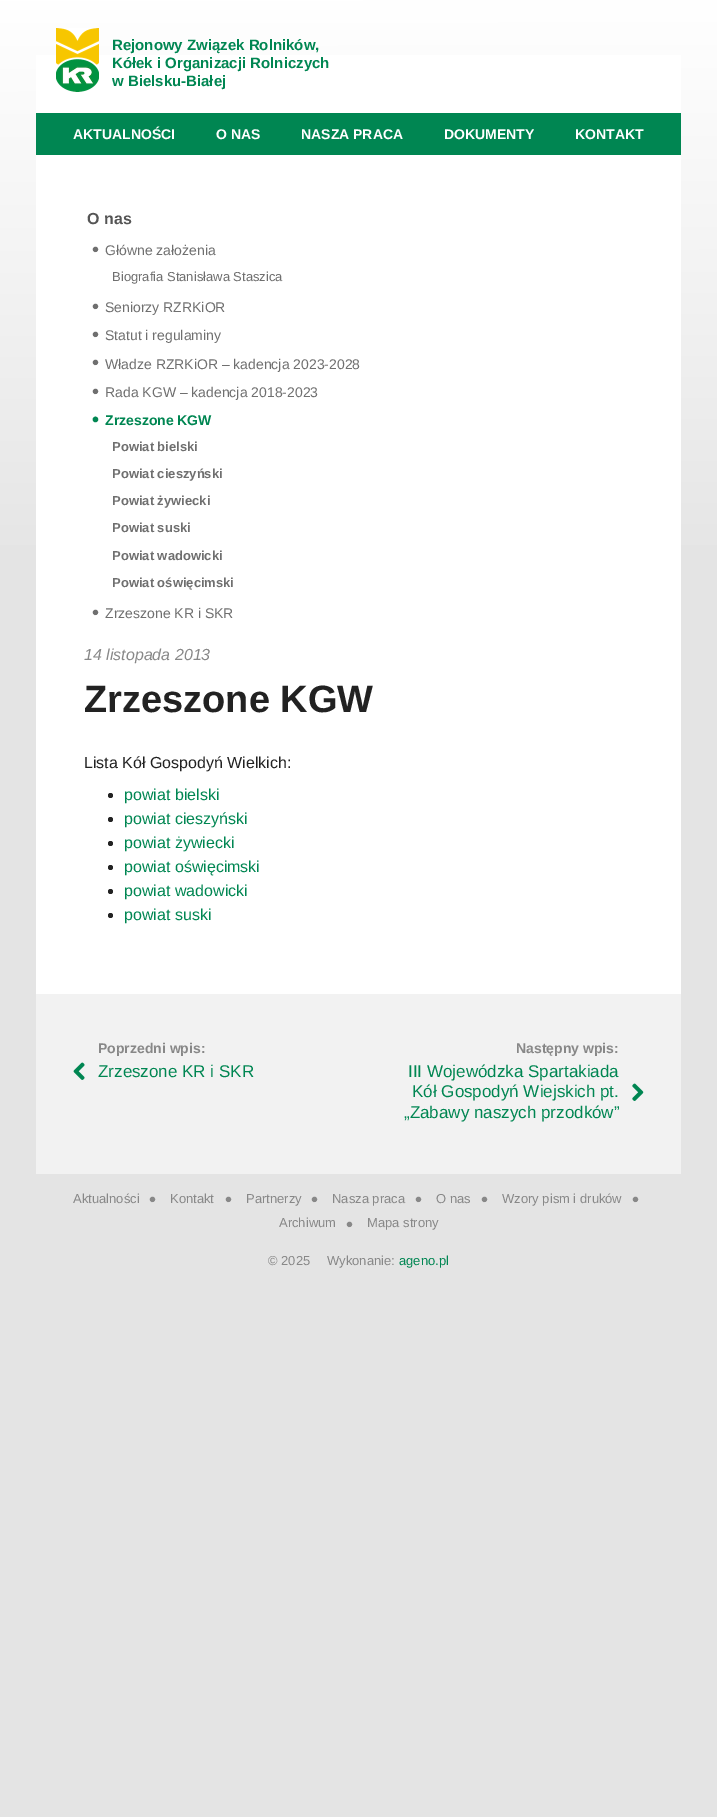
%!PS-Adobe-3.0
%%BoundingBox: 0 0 717 1817
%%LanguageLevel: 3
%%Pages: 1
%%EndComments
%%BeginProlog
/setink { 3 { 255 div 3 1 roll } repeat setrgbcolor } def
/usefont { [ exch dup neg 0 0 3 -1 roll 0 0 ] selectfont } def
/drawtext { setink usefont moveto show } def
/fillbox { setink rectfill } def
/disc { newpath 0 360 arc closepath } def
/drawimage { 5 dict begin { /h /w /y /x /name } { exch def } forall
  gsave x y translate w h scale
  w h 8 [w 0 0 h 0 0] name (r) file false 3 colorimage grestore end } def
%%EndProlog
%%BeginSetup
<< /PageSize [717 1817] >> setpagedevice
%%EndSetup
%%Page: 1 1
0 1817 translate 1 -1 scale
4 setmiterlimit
0 0 717 1817 228 228 228 fillbox
gsave 0 0 moveto 717 0 lineto 717 545 lineto 0 545 lineto closepath clip newpath
<< /ShadingType 2 /ColorSpace /DeviceRGB /Coords [358 0 359 600] /Extend [true true] /Function << /FunctionType 2 /Domain [0 1] /C0 [1 1 1] /C1 [0.894 0.894 0.894] /N 1 >> >> shfill grestore
36 55 645 939 255 255 255 fillbox
(assets/img1.rgb) 56 28 43 64 drawimage
(Rejonowy Związek Rolników,) 112 50 /LiberationSans-Bold 15 0 134 82 drawtext
(Kółek i Organizacji Rolniczych) 112 68 /LiberationSans-Bold 15 0 134 82 drawtext
(w Bielsku-Białej) 112 86 /LiberationSans-Bold 15 0 134 82 drawtext
36 113 645 42 0 134 82 fillbox
(AKTUALNOŚCI) 73 139 /LiberationSans-Bold 14 255 255 255 drawtext
(O NAS) 216 139 /LiberationSans-Bold 14 255 255 255 drawtext
(NASZA PRACA) 301 139 /LiberationSans-Bold 14 255 255 255 drawtext
(DOKUMENTY) 444 139 /LiberationSans-Bold 14 255 255 255 drawtext
(KONTAKT) 575 139 /LiberationSans-Bold 14 255 255 255 drawtext
(O nas) 87 224 /LiberationSans-Bold 16 85 85 85 drawtext
(•) 92 256 /LiberationSans-Regular 20 111 111 111 drawtext
(Główne założenia) 105 255 /LiberationSans-Regular 14 111 111 111 drawtext
(Biografia Stanisława Staszica) 112 281 /LiberationSans-Regular 13 111 111 111 drawtext
(•) 92 313 /LiberationSans-Regular 20 111 111 111 drawtext
(Seniorzy RZRKiOR) 105 312 /LiberationSans-Regular 14 111 111 111 drawtext
(•) 92 341 /LiberationSans-Regular 20 111 111 111 drawtext
(Statut i regulaminy) 105 340 /LiberationSans-Regular 14 111 111 111 drawtext
(•) 92 369 /LiberationSans-Regular 20 111 111 111 drawtext
(Władze RZRKiOR – kadencja 2023-2028) 105 369 /LiberationSans-Regular 14 111 111 111 drawtext
(•) 92 398 /LiberationSans-Regular 20 111 111 111 drawtext
(Rada KGW – kadencja 2018-2023) 105 397 /LiberationSans-Regular 14 111 111 111 drawtext
(•) 92 426 /LiberationSans-Bold 20 0 134 82 drawtext
(Zrzeszone KGW) 105 425 /LiberationSans-Bold 14 0 134 82 drawtext
(Powiat bielski) 112 451 /LiberationSans-Bold 13 111 111 111 drawtext
(Powiat cieszyński) 112 478 /LiberationSans-Bold 13 111 111 111 drawtext
(Powiat żywiecki) 112 505 /LiberationSans-Bold 13 111 111 111 drawtext
(Powiat suski) 112 532 /LiberationSans-Bold 13 111 111 111 drawtext
(Powiat wadowicki) 112 560 /LiberationSans-Bold 13 111 111 111 drawtext
(Powiat oświęcimski) 112 587 /LiberationSans-Bold 13 111 111 111 drawtext
(•) 92 619 /LiberationSans-Regular 20 111 111 111 drawtext
(Zrzeszone KR i SKR) 105 618 /LiberationSans-Regular 14 111 111 111 drawtext
(14 listopada 2013) 84 660 /LiberationSans-Italic 16 136 136 136 drawtext
(Zrzeszone KGW) 84 712 /LiberationSans-Bold 38 34 34 34 drawtext
(Lista Kół Gospodyń Wielkich:) 84 768 /LiberationSans-Regular 16 34 34 34 drawtext
110.5 795.5 2.5 disc fill
(powiat bielski) 124 800 /LiberationSans-Regular 16 0 134 82 drawtext
34 34 34 setink
110.5 819.5 2.5 disc fill
(powiat cieszyński) 124 824 /LiberationSans-Regular 16 0 134 82 drawtext
34 34 34 setink
110.5 843.5 2.5 disc fill
(powiat żywiecki) 124 848 /LiberationSans-Regular 16 0 134 82 drawtext
34 34 34 setink
110.5 867.5 2.5 disc fill
(powiat oświęcimski) 124 872 /LiberationSans-Regular 16 0 134 82 drawtext
34 34 34 setink
110.5 891.5 2.5 disc fill
(powiat wadowicki) 124 896 /LiberationSans-Regular 16 0 134 82 drawtext
34 34 34 setink
110.5 915.5 2.5 disc fill
(powiat suski) 124 920 /LiberationSans-Regular 16 0 134 82 drawtext
36 994 645 180 242 242 242 fillbox
(Poprzedni wpis:) 98 1053 /LiberationSans-Bold 14 136 136 136 drawtext
(assets/img2.rgb) 73 1062 12 18 drawimage
(Zrzeszone KR i SKR) 98 1077 /LiberationSans-Regular 17 0 134 82 drawtext
(Następny wpis:) 516 1053 /LiberationSans-Bold 14 136 136 136 drawtext
(III Wojewódzka Spartakiada) 408 1077 /LiberationSans-Regular 17 0 134 82 drawtext
(Kół Gospodyń Wiejskich pt.) 412 1097 /LiberationSans-Regular 17 0 134 82 drawtext
(assets/img3.rgb) 632 1083 12 18 drawimage
(„Zabawy naszych przodków”) 404 1118 /LiberationSans-Regular 17 0 134 82 drawtext
(Aktualności) 73 1203 /LiberationSans-Regular 13 136 136 136 drawtext
(•) 149 1206 /LiberationSans-Regular 20 136 136 136 drawtext
(Kontakt) 170 1203 /LiberationSans-Regular 13 136 136 136 drawtext
(•) 225 1206 /LiberationSans-Regular 20 136 136 136 drawtext
(Partnerzy) 246 1203 /LiberationSans-Regular 13 136 136 136 drawtext
(•) 311 1206 /LiberationSans-Regular 20 136 136 136 drawtext
(Nasza praca) 332 1203 /LiberationSans-Regular 13 136 136 136 drawtext
(•) 415 1206 /LiberationSans-Regular 20 136 136 136 drawtext
(O nas) 436 1203 /LiberationSans-Regular 13 136 136 136 drawtext
(•) 481 1206 /LiberationSans-Regular 20 136 136 136 drawtext
(Wzory pism i druków) 502 1203 /LiberationSans-Regular 13 136 136 136 drawtext
(•) 632 1206 /LiberationSans-Regular 20 136 136 136 drawtext
(Archiwum) 279 1227 /LiberationSans-Regular 13 136 136 136 drawtext
(•) 346 1231 /LiberationSans-Regular 20 136 136 136 drawtext
(Mapa strony) 367 1227 /LiberationSans-Regular 13 136 136 136 drawtext
(© 2025) 268 1265 /LiberationSans-Regular 13 136 136 136 drawtext
(Wykonanie:) 327 1265 /LiberationSans-Regular 13 136 136 136 drawtext
(ageno.pl) 399 1265 /LiberationSans-Regular 13 0 134 82 drawtext
showpage
%%EOF
